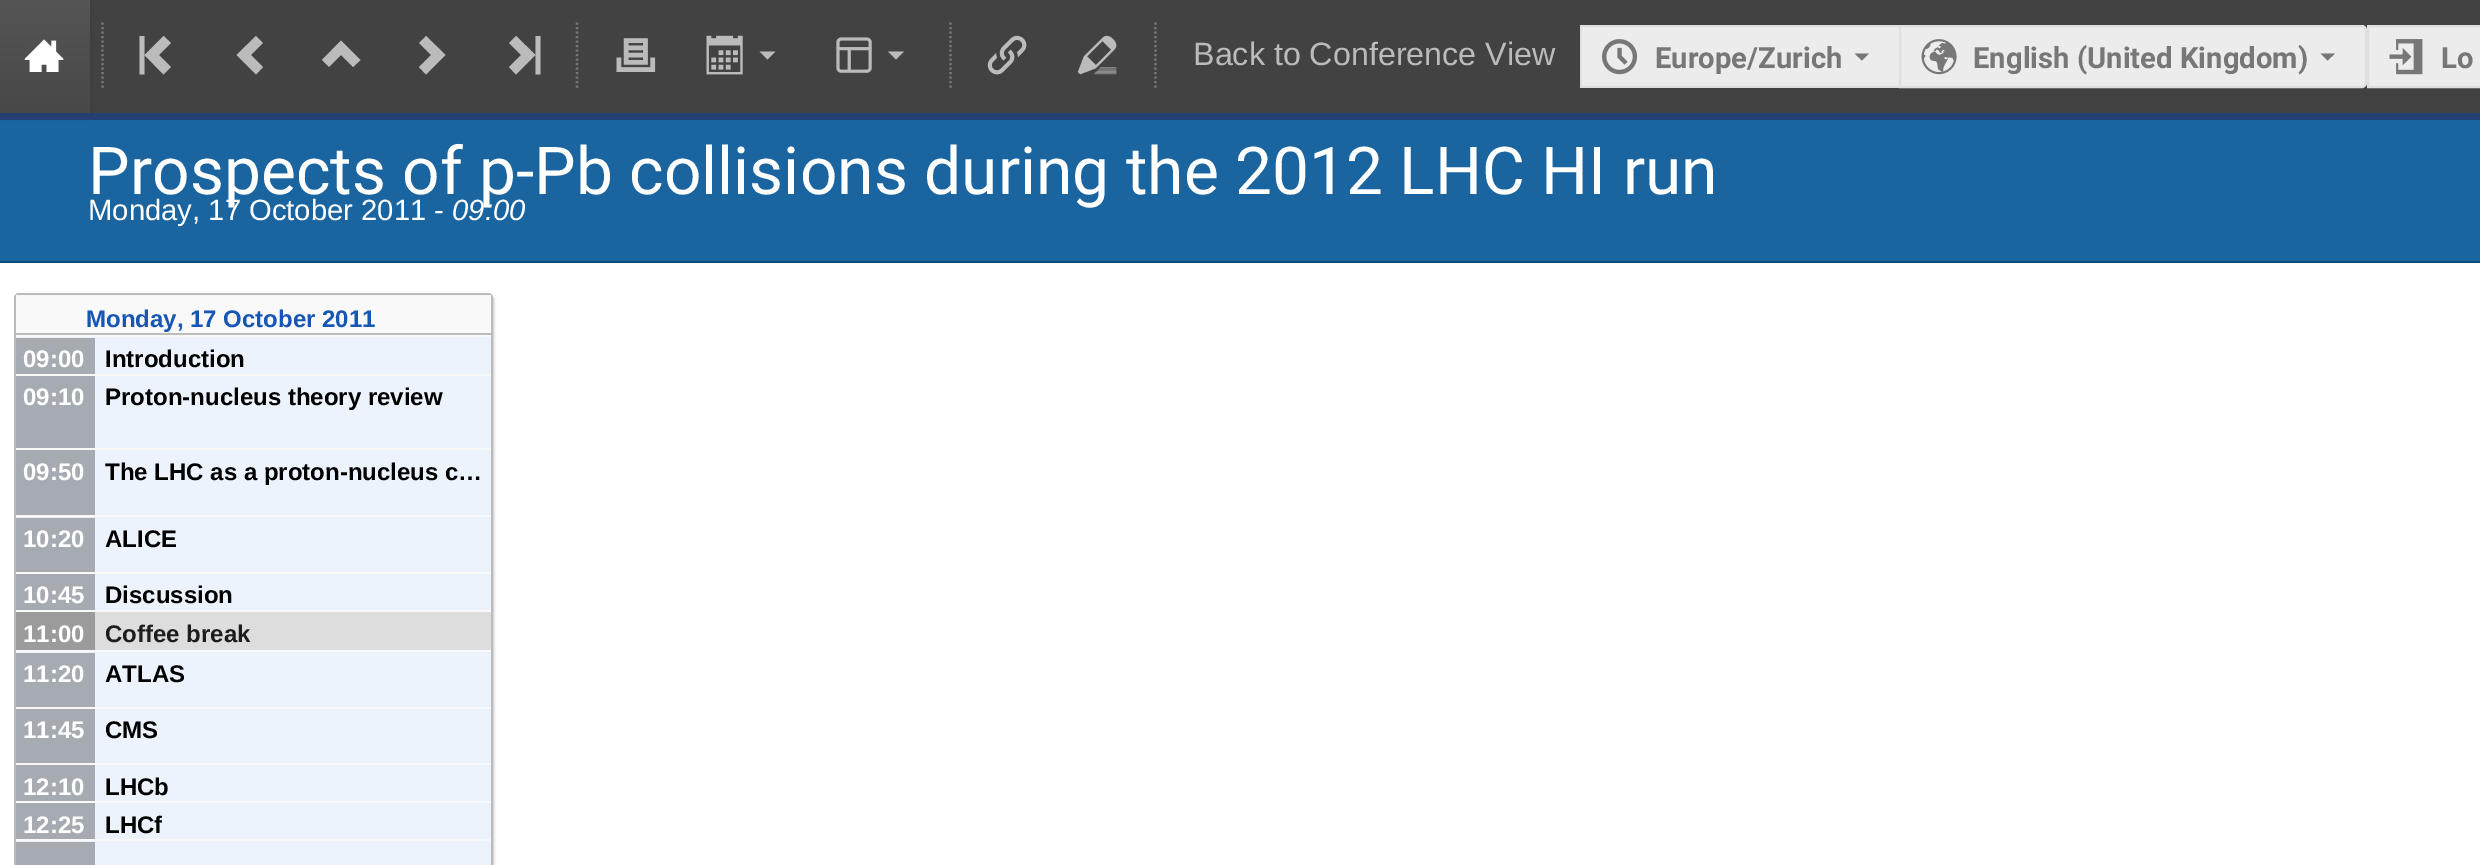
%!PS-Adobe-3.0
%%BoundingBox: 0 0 2480 865
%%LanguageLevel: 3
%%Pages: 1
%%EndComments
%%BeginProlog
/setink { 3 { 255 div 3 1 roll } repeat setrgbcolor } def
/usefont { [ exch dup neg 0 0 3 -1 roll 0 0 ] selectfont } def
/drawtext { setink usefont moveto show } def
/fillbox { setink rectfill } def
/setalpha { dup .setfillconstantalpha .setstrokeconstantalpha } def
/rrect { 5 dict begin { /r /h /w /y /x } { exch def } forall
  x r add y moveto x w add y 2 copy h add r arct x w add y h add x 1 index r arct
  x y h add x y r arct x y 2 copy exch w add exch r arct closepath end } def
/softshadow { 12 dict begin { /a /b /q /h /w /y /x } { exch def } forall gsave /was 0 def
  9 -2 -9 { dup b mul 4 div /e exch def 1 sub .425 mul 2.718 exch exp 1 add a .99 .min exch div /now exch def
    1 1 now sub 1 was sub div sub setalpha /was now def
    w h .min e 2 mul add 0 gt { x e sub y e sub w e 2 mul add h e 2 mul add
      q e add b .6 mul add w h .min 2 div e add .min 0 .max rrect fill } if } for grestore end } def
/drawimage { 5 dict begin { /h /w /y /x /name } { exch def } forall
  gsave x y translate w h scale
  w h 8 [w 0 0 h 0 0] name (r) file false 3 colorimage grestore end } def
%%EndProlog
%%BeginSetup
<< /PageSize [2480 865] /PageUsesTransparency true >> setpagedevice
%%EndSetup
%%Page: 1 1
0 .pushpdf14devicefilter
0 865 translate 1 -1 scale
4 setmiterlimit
0 0 2480 865 255 255 255 fillbox
90 0 2390 113 66 66 66 fillbox
0 120 2480 141 26 100 160 fillbox
0 113 2480 7 35 65 115 fillbox
20 20 20 setink
2 2 90 113 0 4.5 0.1 softshadow
gsave 0 0 moveto 90 0 lineto 90 113 lineto 0 113 lineto closepath clip newpath
<< /ShadingType 2 /ColorSpace /DeviceRGB /Coords [45 0 45 113] /Extend [true true] /Function << /FunctionType 2 /Domain [0 1] /C0 [0.333 0.333 0.333] /C1 [0.282 0.282 0.282] /N 1 >> >> shfill grestore
(assets/img1.rgb) 24 39 40 33 drawimage
119 119 119 setink
2.2 setlinewidth
[2.25 2.25] 0 setdash
102.5 22.5 moveto 102.5 90 lineto stroke
187 187 187 setink
171 43 moveto 163.5 36 lineto 144.5 55 lineto 163.5 74.5 lineto 171 67 lineto 159 55 lineto closepath 139.5 36 moveto 139.5 74.5 lineto 144.5 74.5 lineto 144.5 36 lineto closepath fill
256 74.5 moveto 263 67 lineto 251 55 lineto 263 43 lineto 256 36 lineto 236.5 55 lineto closepath fill
322 60 moveto 329 67 lineto 341 55 lineto 353 67 lineto 360.5 60 lineto 341 40.5 lineto closepath fill
426 36 moveto 419 43 lineto 431 55 lineto 419 67 lineto 426 74.5 lineto 445.5 55 lineto closepath fill
509 67 moveto 516 74.5 lineto 535.5 55 lineto 516 36 lineto 509 43 lineto 521 55 lineto closepath 540.5 74.5 moveto 540.5 36 lineto 535.5 36 lineto 535.5 74.5 lineto closepath fill
119 119 119 setink
577 22.5 moveto 577 90 lineto stroke
(assets/img2.rgb) 616 38 40 34 drawimage
(assets/img3.rgb) 706 35 37 40 drawimage
187 187 187 setink
759.5 51.5 moveto 767.5 59.5 lineto 775.5 51.5 lineto closepath fill
(assets/img4.rgb) 836 37 36 36 drawimage
888 51.5 moveto 896 59.5 lineto 904 51.5 lineto closepath fill
119 119 119 setink
950.5 22.5 moveto 950.5 90 lineto stroke
(assets/img5.rgb) 987 35 40 40 drawimage
(assets/img6.rgb) 1077 35 40 40 drawimage
1155.5 22.5 moveto 1155.5 90 lineto stroke
(Back to Conference View) 1193 65 /LiberationSans-Regular 32.25 187 187 187 drawtext
1582 27 317 59 236 236 236 fillbox
1580 25 319 2 223 223 223 fillbox
1580 86 319 2 223 223 223 fillbox
1580 25 2 63 223 223 223 fillbox
(assets/img7.rgb) 1602 39 36 36 drawimage
(Europe/Zurich) 1655 68 /Roboto-Bold 29.25 119 119 119 drawtext
1854.5 53.5 moveto 1862 60.5 lineto 1869 53.5 lineto closepath fill
236 236 236 setink
1900 26 moveto 2362 26 lineto 2364 26 2366 28 2366 30 curveto 2366 83 lineto 2366 85 2364 87 2362 87 curveto 1900 87 lineto closepath gsave fill grestore
223 223 223 setink
2 setlinewidth
[] 0 setdash
stroke
(assets/img8.rgb) 1921 39 36 36 drawimage
(English \(United Kingdom\)) 1973 68 /Roboto-Bold 29.25 119 119 119 drawtext
2320.5 53.5 moveto 2327.5 60.5 lineto 2335 53.5 lineto closepath fill
236 236 236 setink
2368 26 moveto 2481 26 lineto 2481 87 lineto 2368 87 lineto closepath gsave fill grestore
223 223 223 setink
stroke
(assets/img9.rgb) 2389 39 34 36 drawimage
(Lo) 2441 68 /Roboto-Bold 29.25 119 119 119 drawtext
0 261 2480 2 15 76 128 fillbox
(Prospects of p-Pb collisions during the 2012 LHC HI run) 88 194 /Roboto-Regular 66 255 255 255 drawtext
(Monday, 17 October 2011 -) 88 220 /LiberationSans-Regular 29.25 255 255 255 drawtext
(09:00) 452 220 /LiberationSans-Italic 29.25 255 255 255 drawtext
225 225 225 setink
16 295 479 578 5 1 1 softshadow
187 187 187 setink
15 294 477 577 4 rrect stroke
16 295 475 38 249 249 249 fillbox
16 333 475 2 187 187 187 fillbox
(Monday, 17 October 2011) 86 327 /LiberationSans-Bold 24 23 86 181 drawtext
16 337 475 37 237 243 253 fillbox
16 335 475 2 249 249 249 fillbox
16 338 79 36 166 170 177 fillbox
(09:00) 23 367 /LiberationSans-Bold 24 255 255 255 drawtext
(Introduction) 105 367 /LiberationSans-Bold 24 0 0 0 drawtext
95 376 396 72 237 243 253 fillbox
16 374 475 2 249 249 249 fillbox
16 376 79 72 166 170 177 fillbox
(09:10) 23 405 /LiberationSans-Bold 24 255 255 255 drawtext
(Proton-nucleus theory review) 105 405 /LiberationSans-Bold 24 0 0 0 drawtext
95 450 396 65 237 243 253 fillbox
16 448 475 2 249 249 249 fillbox
16 450 79 65 166 170 177 fillbox
(09:50) 23 480 /LiberationSans-Bold 24 255 255 255 drawtext
(The LHC as a proton-nucleus c…) 105 480 /LiberationSans-Bold 24 0 0 0 drawtext
16 517 475 55 237 243 253 fillbox
16 515 475 2 249 249 249 fillbox
16 518 79 54 166 170 177 fillbox
(10:20) 23 547 /LiberationSans-Bold 24 255 255 255 drawtext
(ALICE) 105 547 /LiberationSans-Bold 24 0 0 0 drawtext
95 574 396 36 237 243 253 fillbox
16 572 475 2 249 249 249 fillbox
16 574 79 36 166 170 177 fillbox
(10:45) 23 603 /LiberationSans-Bold 24 255 255 255 drawtext
(Discussion) 105 603 /LiberationSans-Bold 24 0 0 0 drawtext
95 612 396 38 221 221 221 fillbox
16 610 475 2 249 249 249 fillbox
16 612 79 38 155 155 155 fillbox
(11:00) 23 642 /LiberationSans-Bold 24 255 255 255 drawtext
(Coffee break) 105 642 /LiberationSans-Bold 24 29 29 29 drawtext
16 652 475 55 237 243 253 fillbox
16 650 475 2 249 249 249 fillbox
16 653 79 54 166 170 177 fillbox
(11:20) 23 682 /LiberationSans-Bold 24 255 255 255 drawtext
(ATLAS) 105 682 /LiberationSans-Bold 24 0 0 0 drawtext
95 709 396 54 237 243 253 fillbox
16 707 475 2 249 249 249 fillbox
16 709 79 54 166 170 177 fillbox
(11:45) 23 738 /LiberationSans-Bold 24 255 255 255 drawtext
(CMS) 105 738 /LiberationSans-Bold 24 0 0 0 drawtext
95 765 396 36 237 243 253 fillbox
16 763 475 2 249 249 249 fillbox
16 765 79 36 166 170 177 fillbox
(12:10) 23 795 /LiberationSans-Bold 24 255 255 255 drawtext
(LHCb) 105 795 /LiberationSans-Bold 24 0 0 0 drawtext
95 803 396 36 237 243 253 fillbox
16 801 475 2 249 249 249 fillbox
16 803 79 36 166 170 177 fillbox
(12:25) 23 833 /LiberationSans-Bold 24 255 255 255 drawtext
(LHCf) 105 833 /LiberationSans-Bold 24 0 0 0 drawtext
16 841 475 24 237 243 253 fillbox
16 839 475 2 249 249 249 fillbox
16 842 79 23 166 170 177 fillbox
.poppdf14devicefilter showpage
%%EOF
